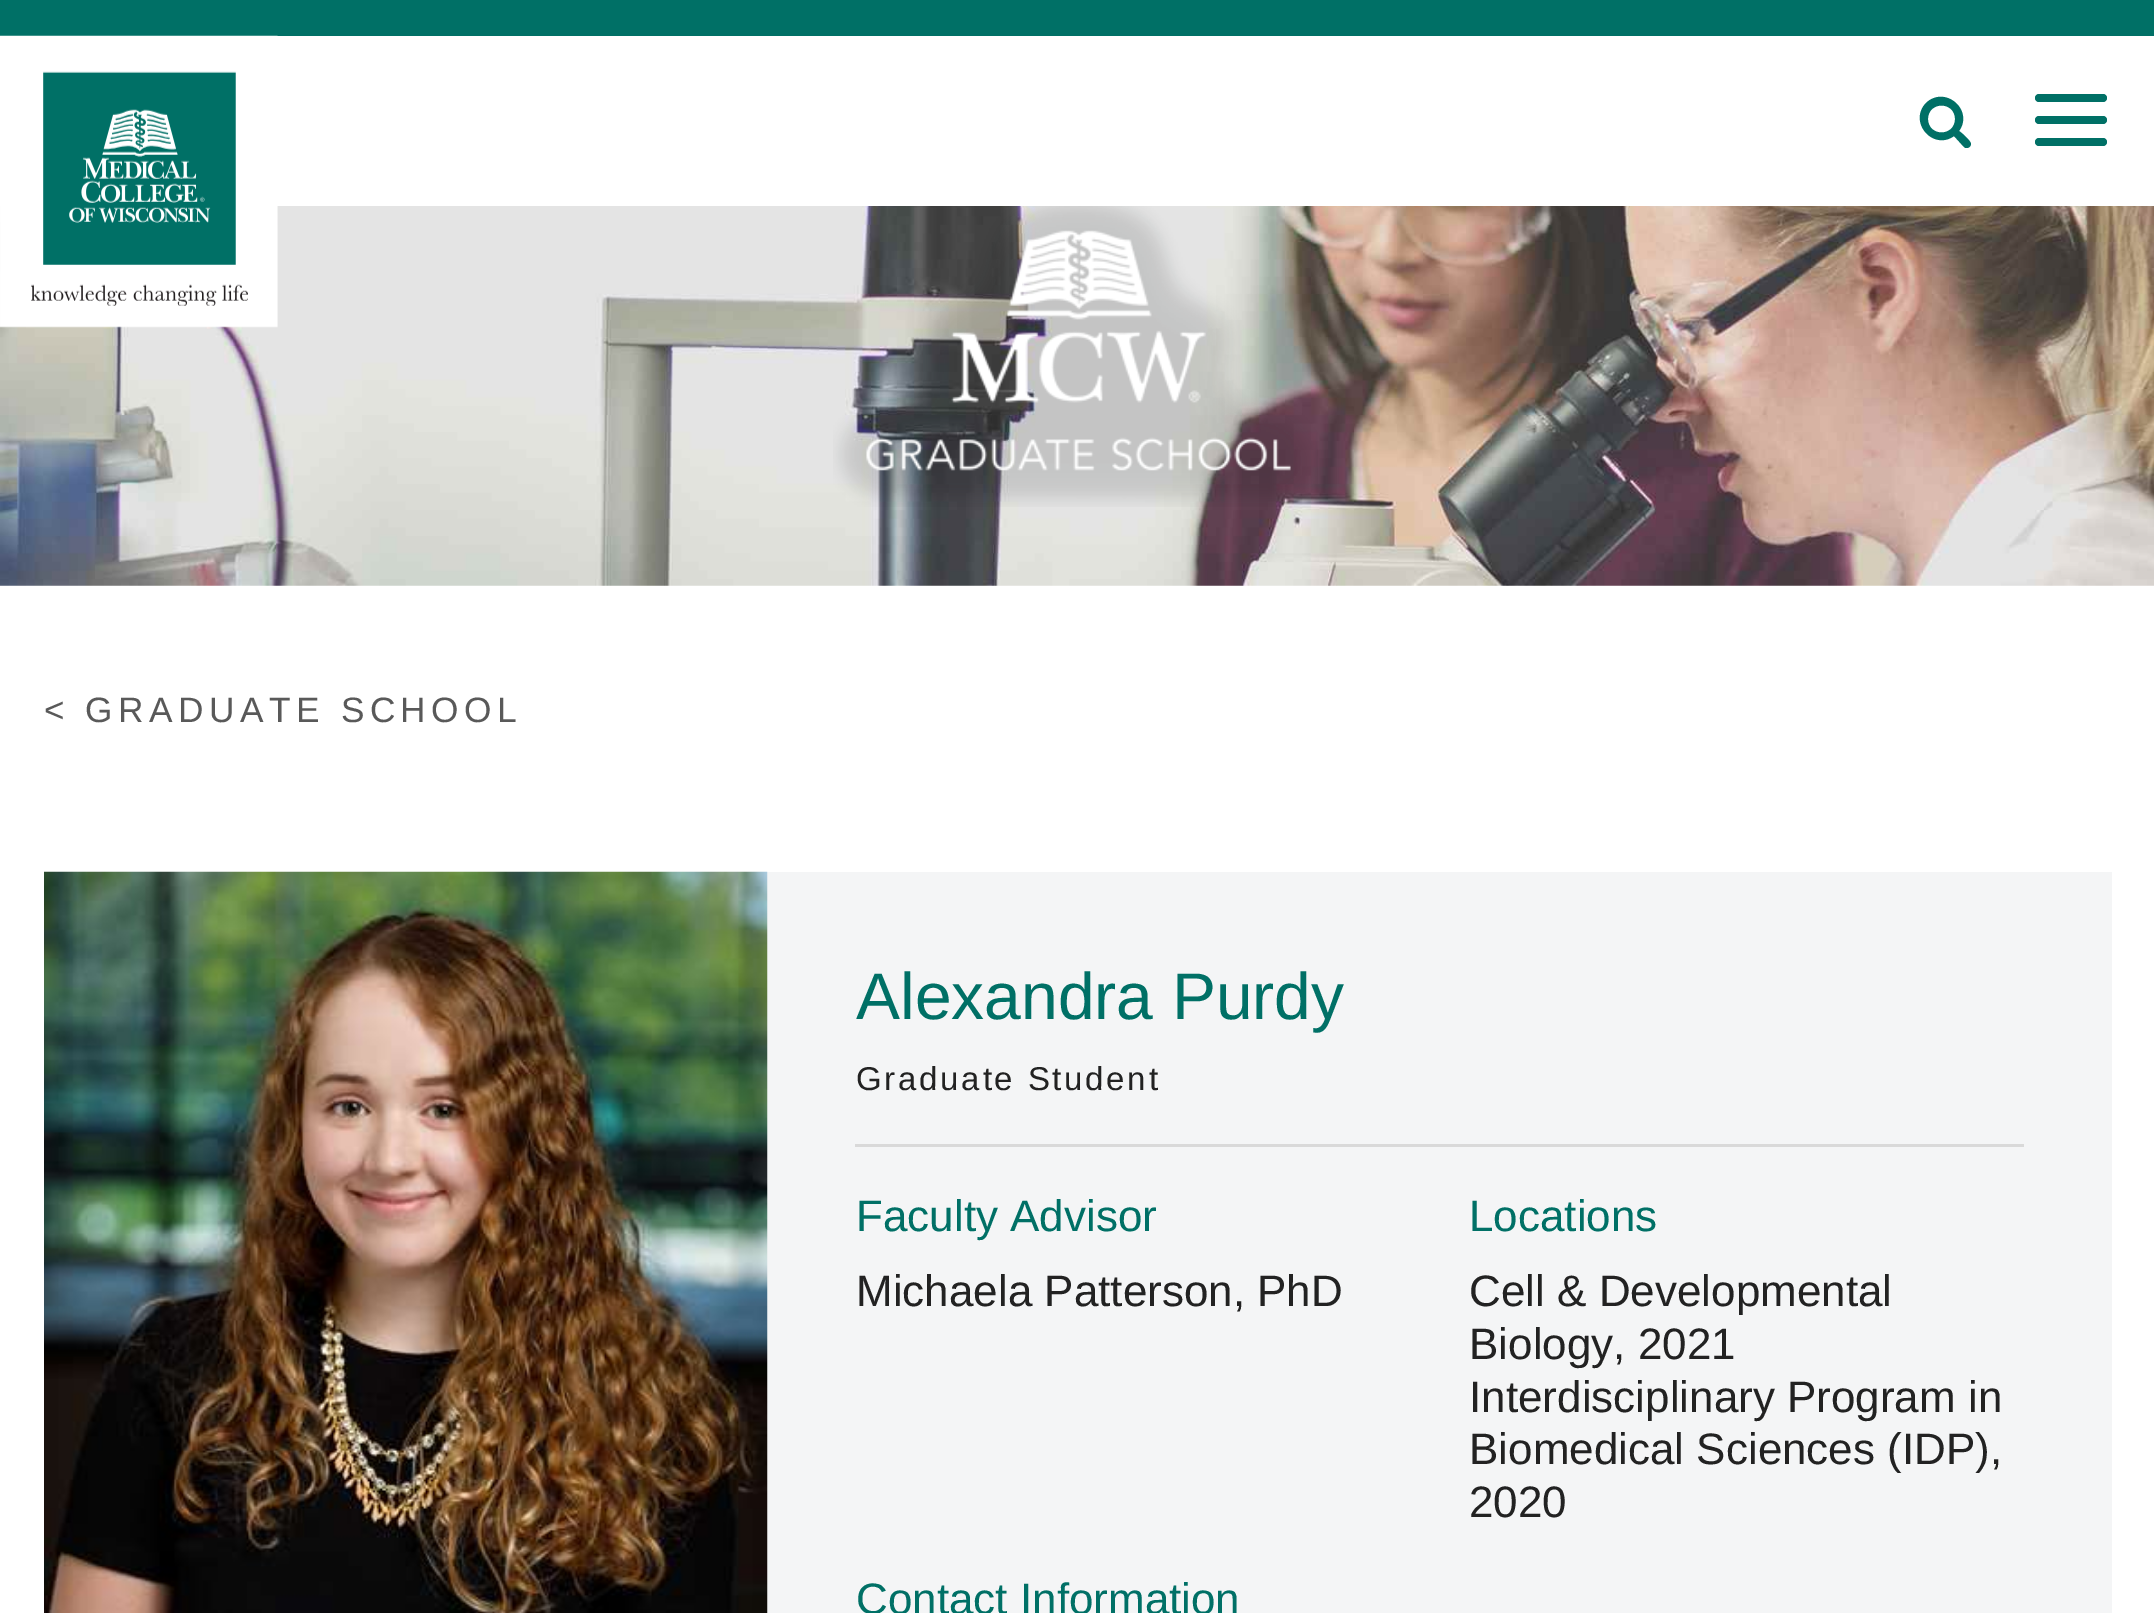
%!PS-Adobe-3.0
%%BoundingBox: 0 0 2154 1613
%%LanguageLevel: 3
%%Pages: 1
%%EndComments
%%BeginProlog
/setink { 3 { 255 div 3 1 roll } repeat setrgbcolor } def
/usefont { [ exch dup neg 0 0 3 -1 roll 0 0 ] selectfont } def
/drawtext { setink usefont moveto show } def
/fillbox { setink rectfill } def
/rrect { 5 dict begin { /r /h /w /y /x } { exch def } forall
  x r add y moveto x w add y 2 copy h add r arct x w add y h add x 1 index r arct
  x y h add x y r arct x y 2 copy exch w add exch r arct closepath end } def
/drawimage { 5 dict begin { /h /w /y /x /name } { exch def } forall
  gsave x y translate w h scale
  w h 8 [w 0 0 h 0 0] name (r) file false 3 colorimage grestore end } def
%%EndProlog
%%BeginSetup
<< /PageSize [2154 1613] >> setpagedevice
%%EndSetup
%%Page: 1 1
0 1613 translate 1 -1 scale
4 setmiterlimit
0 0 2154 1613 255 255 255 fillbox
0 0 2154 36 0 112 102 fillbox
(assets/img2.rgb) 0 206 2154 380 drawimage
(assets/img1.rgb) 0 35 278 293 drawimage
2035 116 72 8 4 rrect fill
2035 94 72 8 4 rrect fill
2035 138 72 8 4 rrect fill
1955 119 moveto 1955 137 1928 137 1928 119 curveto 1928 101 1955 101 1955 119 curveto closepath 1971 144 moveto 1971 141 1962 133 1959 131 curveto 1974 110 1945 85 1926 103 curveto 1908 122 1933 151 1954 136 curveto 1964 147 lineto 1965 148 1966 148 1967 148 curveto 1969 148 1971 146 1971 144 curveto closepath fill
(assets/img3.rgb) 833 206 485 301 drawimage
/LiberationSans-Regular 35.25 usefont
89 89 89 setink
44 722 moveto 5.5 0 (< GRADUATE SCHOOL) ashow
767 872 1345 741 244 245 246 fillbox
(assets/img4.rgb) 44 871 724 742 drawimage
855 1144 1169 3 217 217 217 fillbox
(Alexandra Purdy) 856 1019 /LiberationSans-Regular 66 0 112 102 drawtext
/LiberationSans-Regular 33 usefont
34 34 34 setink
856 1090 moveto 2.75 0 (Graduate Student) ashow
(Faculty Advisor) 856 1231 /LiberationSans-Regular 44 0 112 102 drawtext
(Michaela Patterson, PhD) 856 1306 /LiberationSans-Regular 44 34 34 34 drawtext
(Locations) 1469 1231 /LiberationSans-Regular 44 0 112 102 drawtext
(Cell & Developmental) 1469 1306 /LiberationSans-Regular 44 34 34 34 drawtext
(Biology, 2021) 1469 1359 /LiberationSans-Regular 44 34 34 34 drawtext
(Interdisciplinary Program in) 1469 1412 /LiberationSans-Regular 44 34 34 34 drawtext
(Biomedical Sciences \(IDP\),) 1469 1464 /LiberationSans-Regular 44 34 34 34 drawtext
(2020) 1469 1517 /LiberationSans-Regular 44 34 34 34 drawtext
(Contact Information) 856 1614 /LiberationSans-Regular 44 0 112 102 drawtext
showpage
%%EOF
